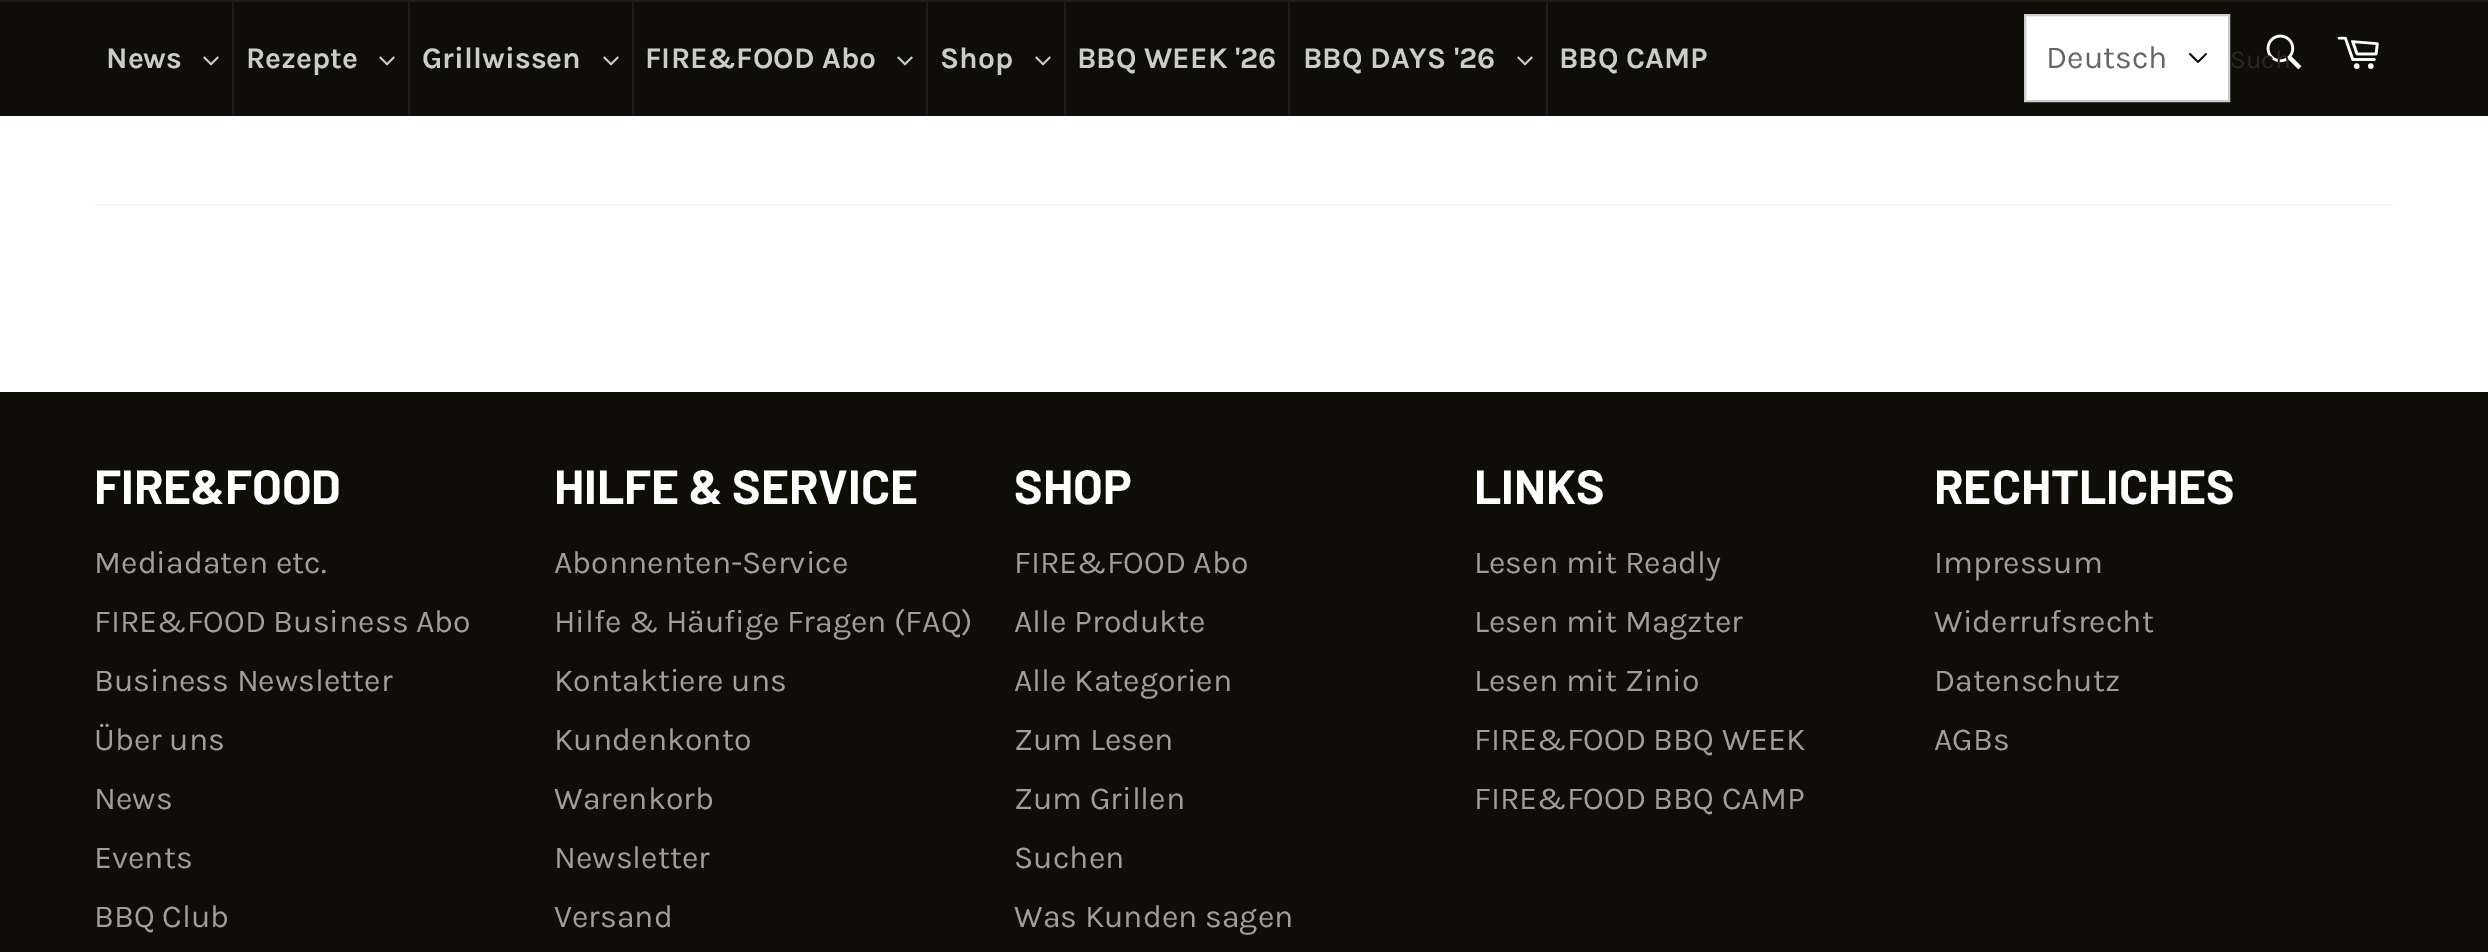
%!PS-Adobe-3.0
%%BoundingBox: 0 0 2488 952
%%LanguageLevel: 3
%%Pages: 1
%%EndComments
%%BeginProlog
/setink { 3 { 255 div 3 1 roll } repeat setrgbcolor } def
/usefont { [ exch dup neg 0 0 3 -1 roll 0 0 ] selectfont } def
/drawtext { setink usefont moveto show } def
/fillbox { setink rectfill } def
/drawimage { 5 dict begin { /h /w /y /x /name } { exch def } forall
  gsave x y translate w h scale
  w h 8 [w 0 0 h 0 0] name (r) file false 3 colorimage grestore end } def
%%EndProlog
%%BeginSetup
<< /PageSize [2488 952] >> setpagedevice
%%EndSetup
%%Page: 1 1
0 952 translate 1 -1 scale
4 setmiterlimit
0 0 2488 952 255 255 255 fillbox
0 2 2488 114 15 13 8 fillbox
0 0 2488 2 32 27 17 fillbox
(News) 106 68 /Karla-Bold 30 204 204 204 drawtext
(assets/img1.rgb) 203 56 16 10 drawimage
232 2 2 114 29 29 29 fillbox
(Rezepte) 246 68 /Karla-Bold 30 204 204 204 drawtext
(assets/img1.rgb) 379 56 16 10 drawimage
408 2 2 114 29 29 29 fillbox
(Grillwissen) 422 68 /Karla-Bold 30 204 204 204 drawtext
(assets/img1.rgb) 603 56 16 10 drawimage
632 2 2 114 29 29 29 fillbox
(FIRE&FOOD Abo) 645 68 /Karla-Bold 30 204 204 204 drawtext
(assets/img1.rgb) 897 56 16 10 drawimage
926 2 2 114 29 29 29 fillbox
(Shop) 940 68 /Karla-Bold 30 204 204 204 drawtext
(assets/img1.rgb) 1035 56 16 10 drawimage
1064 2 2 114 29 29 29 fillbox
(BBQ WEEK '26) 1077 68 /Karla-Bold 30 204 204 204 drawtext
1288 2 2 114 29 29 29 fillbox
(BBQ DAYS '26) 1303 68 /Karla-Bold 30 204 204 204 drawtext
(assets/img1.rgb) 1517 56 16 10 drawimage
1546 2 2 114 29 29 29 fillbox
(BBQ CAMP) 1559 68 /Karla-Bold 30 204 204 204 drawtext
255 255 255 setink
2025 15 moveto 2229 15 lineto 2229 101 lineto 2025 101 lineto closepath gsave fill grestore
204 204 204 setink
2 setlinewidth
stroke
(Deutsch) 2046 68 /Karla-Regular 32 102 102 102 drawtext
(assets/img2.rgb) 2189 53 18 10 drawimage
(assets/img3.rgb) 2266 34 36 36 drawimage
(Such) 2230 68 /Karla-Regular 26 41 40 35 drawtext
(assets/img4.rgb) 2337 36 42 33 drawimage
94 204 2300 2 247 247 247 fillbox
0 392 2488 560 15 13 8 fillbox
(FIRE&FOOD) 94 504 /Barlow-Bold 48 255 255 255 drawtext
(Mediadaten etc.) 94 573 /Karla-Regular 32 159 158 156 drawtext
(FIRE&FOOD Business Abo) 94 632 /Karla-Regular 32 159 158 156 drawtext
(Business Newsletter) 94 691 /Karla-Regular 32 159 158 156 drawtext
(Über uns) 94 750 /Karla-Regular 32 159 158 156 drawtext
(News) 94 809 /Karla-Regular 32 159 158 156 drawtext
(Events) 94 868 /Karla-Regular 32 159 158 156 drawtext
(BBQ Club) 94 927 /Karla-Regular 32 159 158 156 drawtext
(HILFE & SERVICE) 554 504 /Barlow-Bold 48 255 255 255 drawtext
(Abonnenten-Service) 554 573 /Karla-Regular 32 159 158 156 drawtext
(Hilfe & Häufige Fragen \(FAQ\)) 554 632 /Karla-Regular 32 159 158 156 drawtext
(Kontaktiere uns) 554 691 /Karla-Regular 32 159 158 156 drawtext
(Kundenkonto) 554 750 /Karla-Regular 32 159 158 156 drawtext
(Warenkorb) 554 809 /Karla-Regular 32 159 158 156 drawtext
(Newsletter) 554 868 /Karla-Regular 32 159 158 156 drawtext
(Versand) 554 927 /Karla-Regular 32 159 158 156 drawtext
(SHOP) 1014 504 /Barlow-Bold 48 255 255 255 drawtext
(FIRE&FOOD Abo) 1014 573 /Karla-Regular 32 159 158 156 drawtext
(Alle Produkte) 1014 632 /Karla-Regular 32 159 158 156 drawtext
(Alle Kategorien) 1014 691 /Karla-Regular 32 159 158 156 drawtext
(Zum Lesen) 1014 750 /Karla-Regular 32 159 158 156 drawtext
(Zum Grillen) 1014 809 /Karla-Regular 32 159 158 156 drawtext
(Suchen) 1014 868 /Karla-Regular 32 159 158 156 drawtext
(Was Kunden sagen) 1014 927 /Karla-Regular 32 159 158 156 drawtext
(LINKS) 1474 504 /Barlow-Bold 48 255 255 255 drawtext
(Lesen mit Readly) 1474 573 /Karla-Regular 32 159 158 156 drawtext
(Lesen mit Magzter) 1474 632 /Karla-Regular 32 159 158 156 drawtext
(Lesen mit Zinio) 1474 691 /Karla-Regular 32 159 158 156 drawtext
(FIRE&FOOD BBQ WEEK) 1474 750 /Karla-Regular 32 159 158 156 drawtext
(FIRE&FOOD BBQ CAMP) 1474 809 /Karla-Regular 32 159 158 156 drawtext
(RECHTLICHES) 1934 504 /Barlow-Bold 48 255 255 255 drawtext
(Impressum) 1934 573 /Karla-Regular 32 159 158 156 drawtext
(Widerrufsrecht) 1934 632 /Karla-Regular 32 159 158 156 drawtext
(Datenschutz) 1934 691 /Karla-Regular 32 159 158 156 drawtext
(AGBs) 1934 750 /Karla-Regular 32 159 158 156 drawtext
showpage
%%EOF
